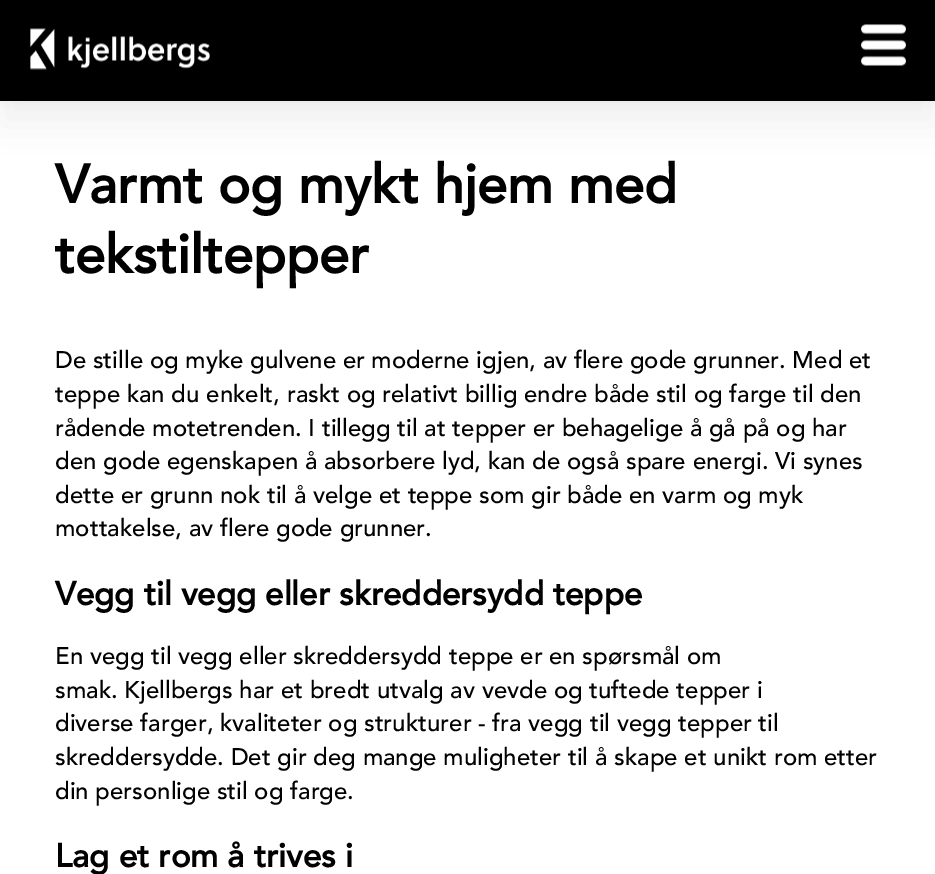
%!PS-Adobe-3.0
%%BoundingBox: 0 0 935 874
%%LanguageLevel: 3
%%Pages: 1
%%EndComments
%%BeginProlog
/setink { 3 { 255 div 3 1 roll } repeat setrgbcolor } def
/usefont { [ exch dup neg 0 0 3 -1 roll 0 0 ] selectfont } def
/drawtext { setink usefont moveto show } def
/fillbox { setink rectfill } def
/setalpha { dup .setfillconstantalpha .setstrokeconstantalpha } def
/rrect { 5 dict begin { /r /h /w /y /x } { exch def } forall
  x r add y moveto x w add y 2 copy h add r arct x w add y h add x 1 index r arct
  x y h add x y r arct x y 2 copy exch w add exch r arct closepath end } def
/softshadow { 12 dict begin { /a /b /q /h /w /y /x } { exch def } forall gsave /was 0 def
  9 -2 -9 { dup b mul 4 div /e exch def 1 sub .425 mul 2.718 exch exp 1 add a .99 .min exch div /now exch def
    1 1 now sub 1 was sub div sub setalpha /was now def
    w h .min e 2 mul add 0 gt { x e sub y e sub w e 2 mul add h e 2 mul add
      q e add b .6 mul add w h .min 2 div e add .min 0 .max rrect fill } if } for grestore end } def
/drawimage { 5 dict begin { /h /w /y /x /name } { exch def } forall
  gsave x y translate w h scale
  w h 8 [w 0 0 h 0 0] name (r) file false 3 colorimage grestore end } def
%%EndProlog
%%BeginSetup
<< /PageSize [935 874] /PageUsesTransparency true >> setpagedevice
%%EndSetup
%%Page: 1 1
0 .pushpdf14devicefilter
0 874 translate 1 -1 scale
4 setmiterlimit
0 0 935 874 255 255 255 fillbox
0 0 0 setink
0 3 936 101 0 4.5 0.04 softshadow
0 24 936 101 0 18 0.06 softshadow
0 0 935 101 0 0 0 fillbox
(assets/img1.rgb) 30 28 180 42 drawimage
(assets/img2.rgb) 861 24 45 42 drawimage
(Varmt og mykt hjem med) 55 203 /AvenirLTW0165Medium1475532-Bold 54 0 0 0 drawtext
(tekstiltepper) 55 273 /AvenirLTW0165Medium1475532-Bold 54 0 0 0 drawtext
(De stille og myke gulvene er moderne igjen, av flere gode grunner. Med et) 55 368 /AvenirLTW0165Medium1475532-Medium 24 0 0 0 drawtext
(teppe kan du enkelt, raskt og relativt billig endre både stil og farge til den) 55 402 /AvenirLTW0165Medium1475532-Medium 24 0 0 0 drawtext
(rådende motetrenden. I tillegg til at tepper er behagelige å gå på og har) 55 436 /AvenirLTW0165Medium1475532-Medium 24 0 0 0 drawtext
(den gode egenskapen å absorbere lyd, kan de også spare energi. Vi synes) 55 469 /AvenirLTW0165Medium1475532-Medium 24 0 0 0 drawtext
(dette er grunn nok til å velge et teppe som gir både en varm og myk) 55 503 /AvenirLTW0165Medium1475532-Medium 24 0 0 0 drawtext
(mottakelse, av flere gode grunner.) 55 536 /AvenirLTW0165Medium1475532-Medium 24 0 0 0 drawtext
(Vegg til vegg eller skreddersydd teppe) 55 605 /AvenirLTW0165Medium1475532-Bold 33 0 0 0 drawtext
(En vegg til vegg eller skreddersydd teppe er en spørsmål om) 55 664 /AvenirLTW0165Medium1475532-Medium 24 0 0 0 drawtext
(smak. Kjellbergs har et bredt utvalg av vevde og tuftede tepper i) 55 698 /AvenirLTW0165Medium1475532-Medium 24 0 0 0 drawtext
(diverse farger, kvaliteter og strukturer - fra vegg til vegg tepper til) 55 731 /AvenirLTW0165Medium1475532-Medium 24 0 0 0 drawtext
(skreddersydde. Det gir deg mange muligheter til å skape et unikt rom etter) 55 765 /AvenirLTW0165Medium1475532-Medium 24 0 0 0 drawtext
(din personlige stil og farge.) 55 799 /AvenirLTW0165Medium1475532-Medium 24 0 0 0 drawtext
(Lag et rom å trives i) 55 867 /AvenirLTW0165Medium1475532-Bold 33 0 0 0 drawtext
.poppdf14devicefilter showpage
%%EOF
